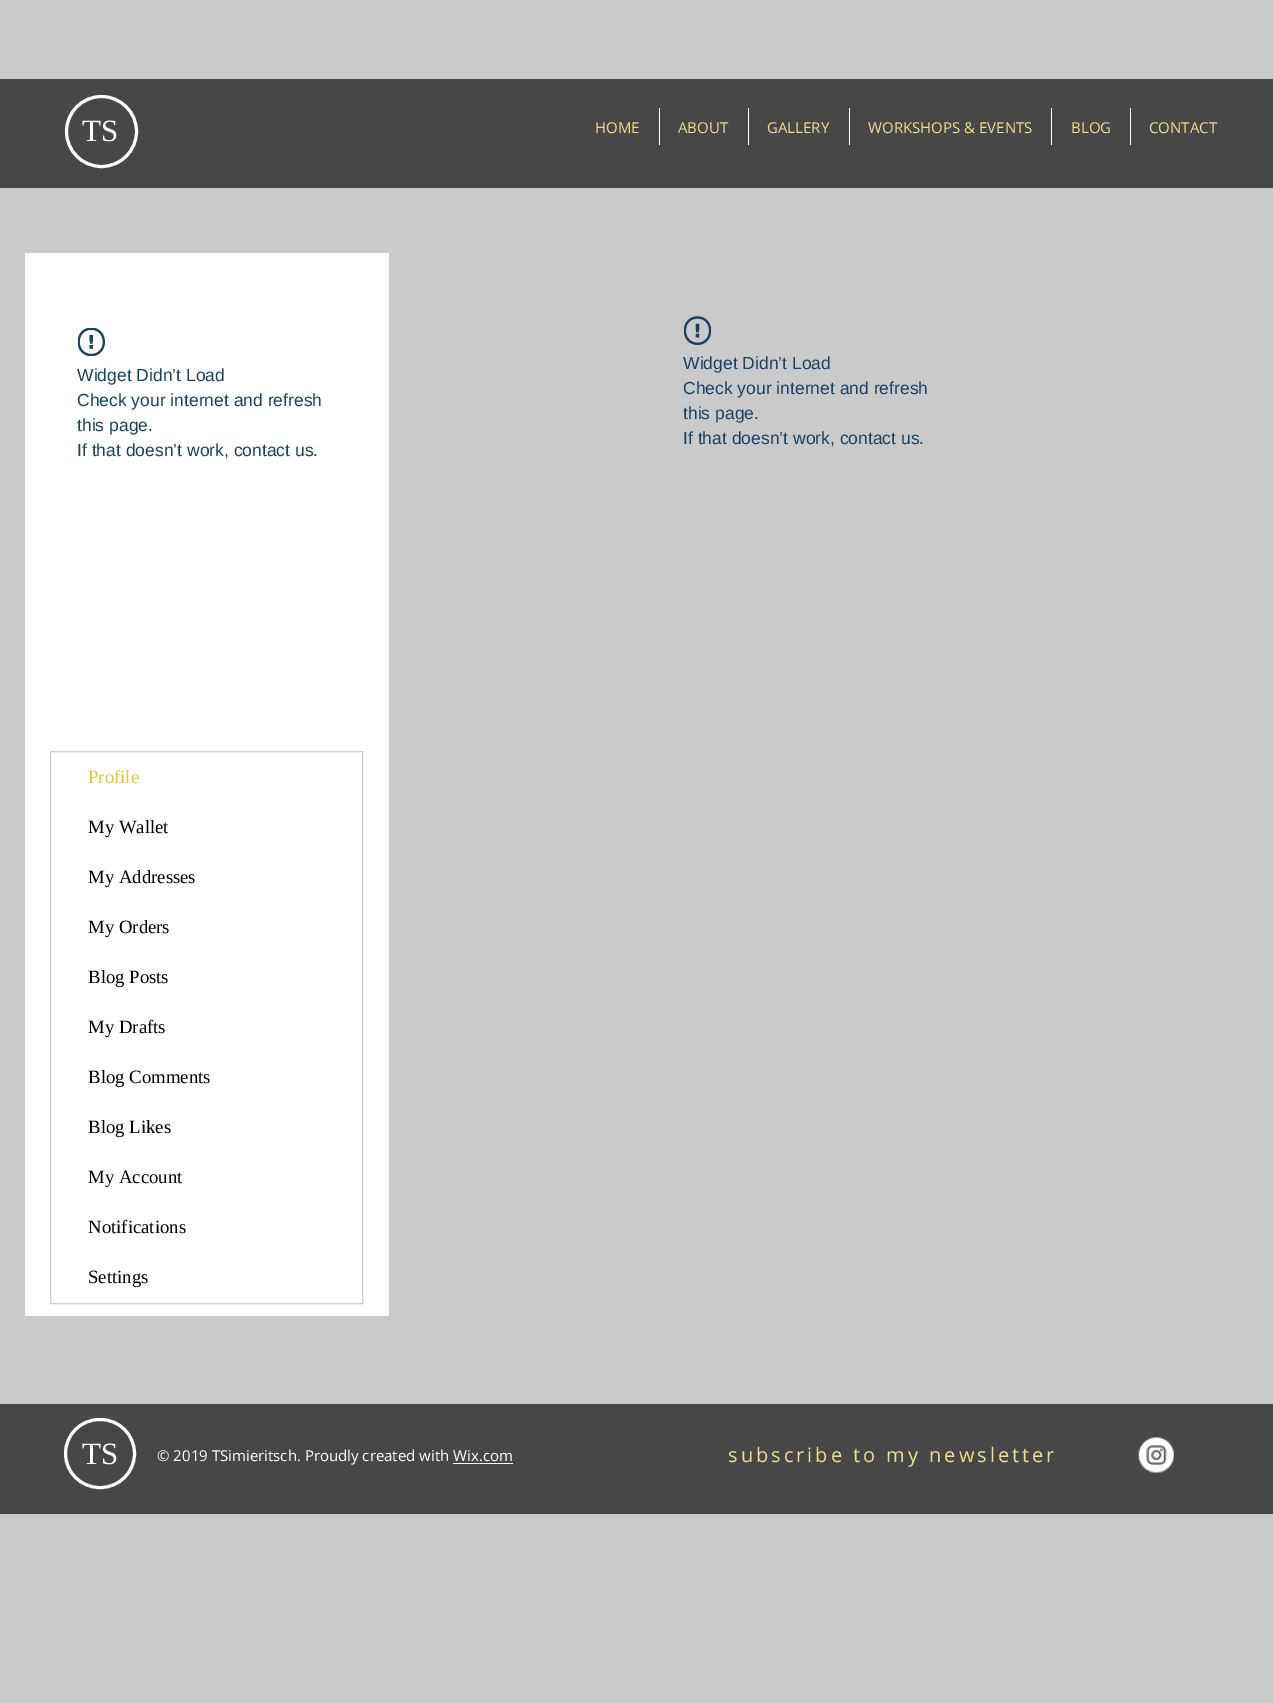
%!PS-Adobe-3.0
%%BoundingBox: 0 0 1273 1703
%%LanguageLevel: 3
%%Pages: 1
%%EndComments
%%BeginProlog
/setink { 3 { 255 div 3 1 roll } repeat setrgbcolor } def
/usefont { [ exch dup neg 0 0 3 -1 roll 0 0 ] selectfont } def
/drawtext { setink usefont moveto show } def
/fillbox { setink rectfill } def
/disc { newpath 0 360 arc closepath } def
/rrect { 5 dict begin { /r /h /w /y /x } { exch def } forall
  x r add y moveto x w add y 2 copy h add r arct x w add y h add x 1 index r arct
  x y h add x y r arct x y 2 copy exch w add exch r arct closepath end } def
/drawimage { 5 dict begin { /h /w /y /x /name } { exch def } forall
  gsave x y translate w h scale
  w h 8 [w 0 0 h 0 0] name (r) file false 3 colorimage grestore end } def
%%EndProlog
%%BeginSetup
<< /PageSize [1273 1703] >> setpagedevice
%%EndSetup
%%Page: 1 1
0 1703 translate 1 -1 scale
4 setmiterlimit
0 0 1273 1703 202 202 202 fillbox
0 79 1273 109 71 71 71 fillbox
255 255 255 setink
3 setlinewidth
101.5 131.5 35 disc stroke
(TS) 82 141 /LiberationSerif-Regular 31 255 255 255 drawtext
(HOME) 595 133 /OpenSans-Regular 15 239 221 141 drawtext
659 108 1 37 255 255 255 fillbox
(ABOUT) 678 133 /OpenSans-Regular 15 239 221 141 drawtext
748 108 1 37 255 255 255 fillbox
(GALLERY) 767 133 /OpenSans-Regular 15 239 221 141 drawtext
849 108 1 37 255 255 255 fillbox
(WORKSHOPS & EVENTS) 868 133 /OpenSans-Regular 15 239 221 141 drawtext
1051 108 1 37 255 255 255 fillbox
(BLOG) 1071 133 /OpenSans-Regular 15 239 221 141 drawtext
1130 108 1 37 255 255 255 fillbox
(CONTACT) 1149 133 /OpenSans-Regular 15 239 221 141 drawtext
25 253 364 1063 255 255 255 fillbox
(assets/img1.rgb) 78 328 27 28 drawimage
(Widget Didn’t Load) 77 381 /LiberationSans-Regular 17.5 23 65 101 drawtext
(Check your internet and refresh) 77 406 /LiberationSans-Regular 17.5 23 65 101 drawtext
(this page.) 77 431 /LiberationSans-Regular 17.5 23 65 101 drawtext
(If that doesn’t work, contact us.) 77 456 /LiberationSans-Regular 17.5 23 65 101 drawtext
204 204 204 setink
1 setlinewidth
50.5 751.5 312 552 rectstroke
(Profile) 88 783 /LiberationSerif-Regular 18.75 232 197 41 drawtext
(My Wallet) 88 833 /LiberationSerif-Regular 18.75 0 0 0 drawtext
(My Addresses) 88 883 /LiberationSerif-Regular 18.75 0 0 0 drawtext
(My Orders) 88 933 /LiberationSerif-Regular 18.75 0 0 0 drawtext
(Blog Posts) 88 983 /LiberationSerif-Regular 18.75 0 0 0 drawtext
(My Drafts) 88 1033 /LiberationSerif-Regular 18.75 0 0 0 drawtext
(Blog Comments) 88 1083 /LiberationSerif-Regular 18.75 0 0 0 drawtext
(Blog Likes) 88 1133 /LiberationSerif-Regular 18.75 0 0 0 drawtext
(My Account) 88 1183 /LiberationSerif-Regular 18.75 0 0 0 drawtext
(Notifications) 88 1233 /LiberationSerif-Regular 18.75 0 0 0 drawtext
(Settings) 88 1283 /LiberationSerif-Regular 18.75 0 0 0 drawtext
(assets/img2.rgb) 684 316 27 29 drawimage
(Widget Didn’t Load) 683 369 /LiberationSans-Regular 17.5 23 65 101 drawtext
(Check your internet and refresh) 683 394 /LiberationSans-Regular 17.5 23 65 101 drawtext
(this page.) 683 419 /LiberationSans-Regular 17.5 23 65 101 drawtext
(If that doesn’t work, contact us.) 683 444 /LiberationSans-Regular 17.5 23 65 101 drawtext
0 1404 1273 110 71 71 71 fillbox
255 255 255 setink
3 setlinewidth
65.5 1419.5 69 68 34 rrect stroke
(TS) 82 1464 /LiberationSerif-Regular 31 255 255 255 drawtext
(© 2019 TSimieritsch. Proudly created with Wix.com) 157 1461 /OpenSans-Regular 15 255 255 255 drawtext
453 1463 60 1 255 255 255 fillbox
/OpenSans-Regular 20 usefont
239 221 141 setink
728 1462 moveto 3 0 (subscribe to my newsletter) ashow
(assets/img3.rgb) 1138 1437 36 36 drawimage
showpage
%%EOF
